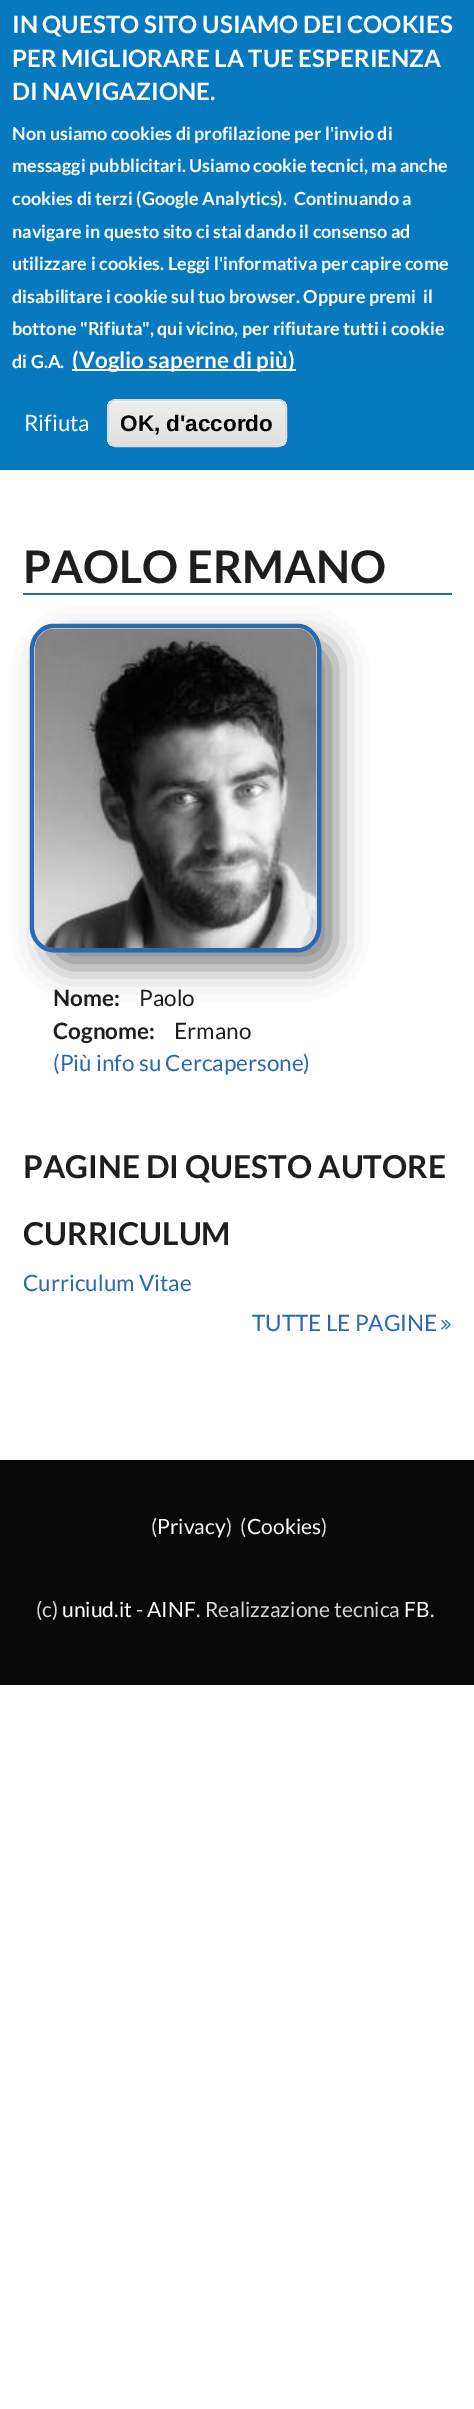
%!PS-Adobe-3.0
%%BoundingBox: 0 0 474 2409
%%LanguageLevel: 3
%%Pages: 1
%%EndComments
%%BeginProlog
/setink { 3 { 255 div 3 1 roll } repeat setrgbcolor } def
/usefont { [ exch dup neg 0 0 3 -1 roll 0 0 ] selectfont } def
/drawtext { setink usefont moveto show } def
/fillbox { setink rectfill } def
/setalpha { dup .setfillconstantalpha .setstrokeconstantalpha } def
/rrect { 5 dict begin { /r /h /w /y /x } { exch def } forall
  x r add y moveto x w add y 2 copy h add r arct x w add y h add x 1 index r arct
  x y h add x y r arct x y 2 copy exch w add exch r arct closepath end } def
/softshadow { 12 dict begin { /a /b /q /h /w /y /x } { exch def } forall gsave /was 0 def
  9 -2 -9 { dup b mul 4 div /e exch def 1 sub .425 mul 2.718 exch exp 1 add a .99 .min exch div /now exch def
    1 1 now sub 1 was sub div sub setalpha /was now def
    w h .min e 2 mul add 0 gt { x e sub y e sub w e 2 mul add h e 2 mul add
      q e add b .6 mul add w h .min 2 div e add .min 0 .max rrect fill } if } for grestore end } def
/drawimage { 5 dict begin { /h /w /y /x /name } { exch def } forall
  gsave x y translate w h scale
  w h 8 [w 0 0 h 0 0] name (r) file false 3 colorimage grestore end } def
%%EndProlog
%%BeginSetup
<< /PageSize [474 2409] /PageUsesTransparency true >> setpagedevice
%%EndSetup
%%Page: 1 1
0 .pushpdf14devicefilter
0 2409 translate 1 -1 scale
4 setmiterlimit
0 0 474 2409 255 255 255 fillbox
0 0 474 470 7 121 191 fillbox
(IN QUESTO SITO USIAMO DEI COOKIES) 12 33 /Lato-Bold 24 255 255 255 drawtext
(PER MIGLIORARE LA TUE ESPERIENZA) 12 67 /Lato-Bold 24 255 255 255 drawtext
(DI NAVIGAZIONE.) 12 100 /Lato-Bold 24 255 255 255 drawtext
(Non usiamo cookies di profilazione per l'invio di) 12 140 /Lato-Bold 18 255 255 255 drawtext
(messaggi pubblicitari. Usiamo cookie tecnici, ma anche) 12 172 /Lato-Bold 18 255 255 255 drawtext
(cookies di terzi \(Google Analytics\).  Continuando a) 12 205 /Lato-Bold 18 255 255 255 drawtext
(navigare in questo sito ci stai dando il consenso ad) 12 238 /Lato-Bold 18 255 255 255 drawtext
(utilizzare i cookies. Leggi l'informativa per capire come) 12 270 /Lato-Bold 18 255 255 255 drawtext
(disabilitare i cookie sul tuo browser. Oppure premi  il) 12 303 /Lato-Bold 18 255 255 255 drawtext
(bottone "Rifiuta", qui vicino, per rifiutare tutti i cookie) 12 335 /Lato-Bold 18 255 255 255 drawtext
(di G.A.) 12 368 /Lato-Bold 18 255 255 255 drawtext
72 369 224 2 255 255 255 fillbox
(\(Voglio saperne di più\)) 72 368 /Lato-Bold 22.5 255 255 255 drawtext
(Rifiuta) 24 431 /Lato-Regular 22.5 255 255 255 drawtext
gsave
107 399 180 48 9 rrect clip newpath
gsave 107 401 moveto 287 401 lineto 287 446 lineto 107 446 lineto closepath clip newpath
<< /ShadingType 2 /ColorSpace /DeviceRGB /Coords [197 401 197 446] /Extend [true true] /Function << /FunctionType 3 /Domain [0 1] /Functions [<< /FunctionType 2 /Domain [0 1] /C0 [0.929 0.929 0.929] /C1 [0.929 0.929 0.929] /N 1 >> << /FunctionType 2 /Domain [0 1] /C0 [0.929 0.929 0.929] /C1 [0.875 0.875 0.875] /N 1 >>] /Bounds [0.05] /Encode [0 1 0 1] >> >> shfill grestore
grestore
116 402 moveto 278 402 lineto 282 402 285 405 285 410 curveto 285 409 lineto 285 405 281 401 277 401 curveto 116 401 lineto 112 401 108 405 108 409 curveto 108 410 lineto 108 405 111 402 116 402 curveto closepath fill
220 220 220 setink
2 setlinewidth
108 400 178 46 8 rrect stroke
(OK, d'accordo) 120 431 /LiberationSans-Bold 22.5 0 0 0 drawtext
23 593 429 2 42 104 175 fillbox
(PAOLO ERMANO) 23 583 /Lato-Bold 45 30 30 30 drawtext
136 136 136 setink
45 639 291 329 24 15 1 softshadow
42 104 175 setink
4.5 setlinewidth
53.5 626 moveto 297.5 626 lineto 309.5 626 319 637 319 650.5 curveto 319 926 lineto 319 939.5 309.5 950 297.5 950 curveto 53.5 950 lineto 41.5 950 32 939.5 32 926 curveto 32 650.5 lineto 32 637 41.5 626 53.5 626 curveto closepath stroke
(assets/img1.rgb) 34 628 283 320 drawimage
(Nome:) 53 1006 /Lato-Bold 22.5 30 30 30 drawtext
(Paolo) 139 1006 /Lato-Regular 22.5 30 30 30 drawtext
(Cognome:) 53 1039 /Lato-Bold 22.5 30 30 30 drawtext
(Ermano) 174 1039 /Lato-Regular 22.5 30 30 30 drawtext
(\(Più info su Cercapersone\)) 53 1071 /Lato-Regular 22.5 42 104 175 drawtext
(PAGINE DI QUESTO AUTORE) 23 1178 /Lato-Bold 31.5 30 30 30 drawtext
(CURRICULUM) 23 1245 /Lato-Bold 31.5 30 30 30 drawtext
(Curriculum Vitae) 23 1291 /Lato-Regular 22.5 42 104 175 drawtext
(TUTTE LE PAGINE) 252 1331 /Lato-Regular 22.5 42 104 175 drawtext
(assets/img2.rgb) 441 1319 10 11 drawimage
0 1460 474 225 8 8 8 fillbox
(\() 151 1534 /Lato-Regular 21 215 215 215 drawtext
(Privacy) 157 1534 /Lato-Regular 21 255 255 255 drawtext
(\)  \() 226 1534 /Lato-Regular 21 215 215 215 drawtext
(Cookies) 247 1534 /Lato-Regular 21 255 255 255 drawtext
(\)) 321 1534 /Lato-Regular 21 215 215 215 drawtext
(\(c\)) 36 1617 /Lato-Regular 21 215 215 215 drawtext
(uniud.it) 62 1617 /Lato-Regular 21 255 255 255 drawtext
(-) 136 1617 /Lato-Regular 21 215 215 215 drawtext
(AINF) 147 1617 /Lato-Regular 21 255 255 255 drawtext
(. Realizzazione tecnica) 196 1617 /Lato-Regular 21 215 215 215 drawtext
(FB) 404 1617 /Lato-Regular 21 255 255 255 drawtext
(.) 430 1617 /Lato-Regular 21 215 215 215 drawtext
.poppdf14devicefilter showpage
%%EOF
